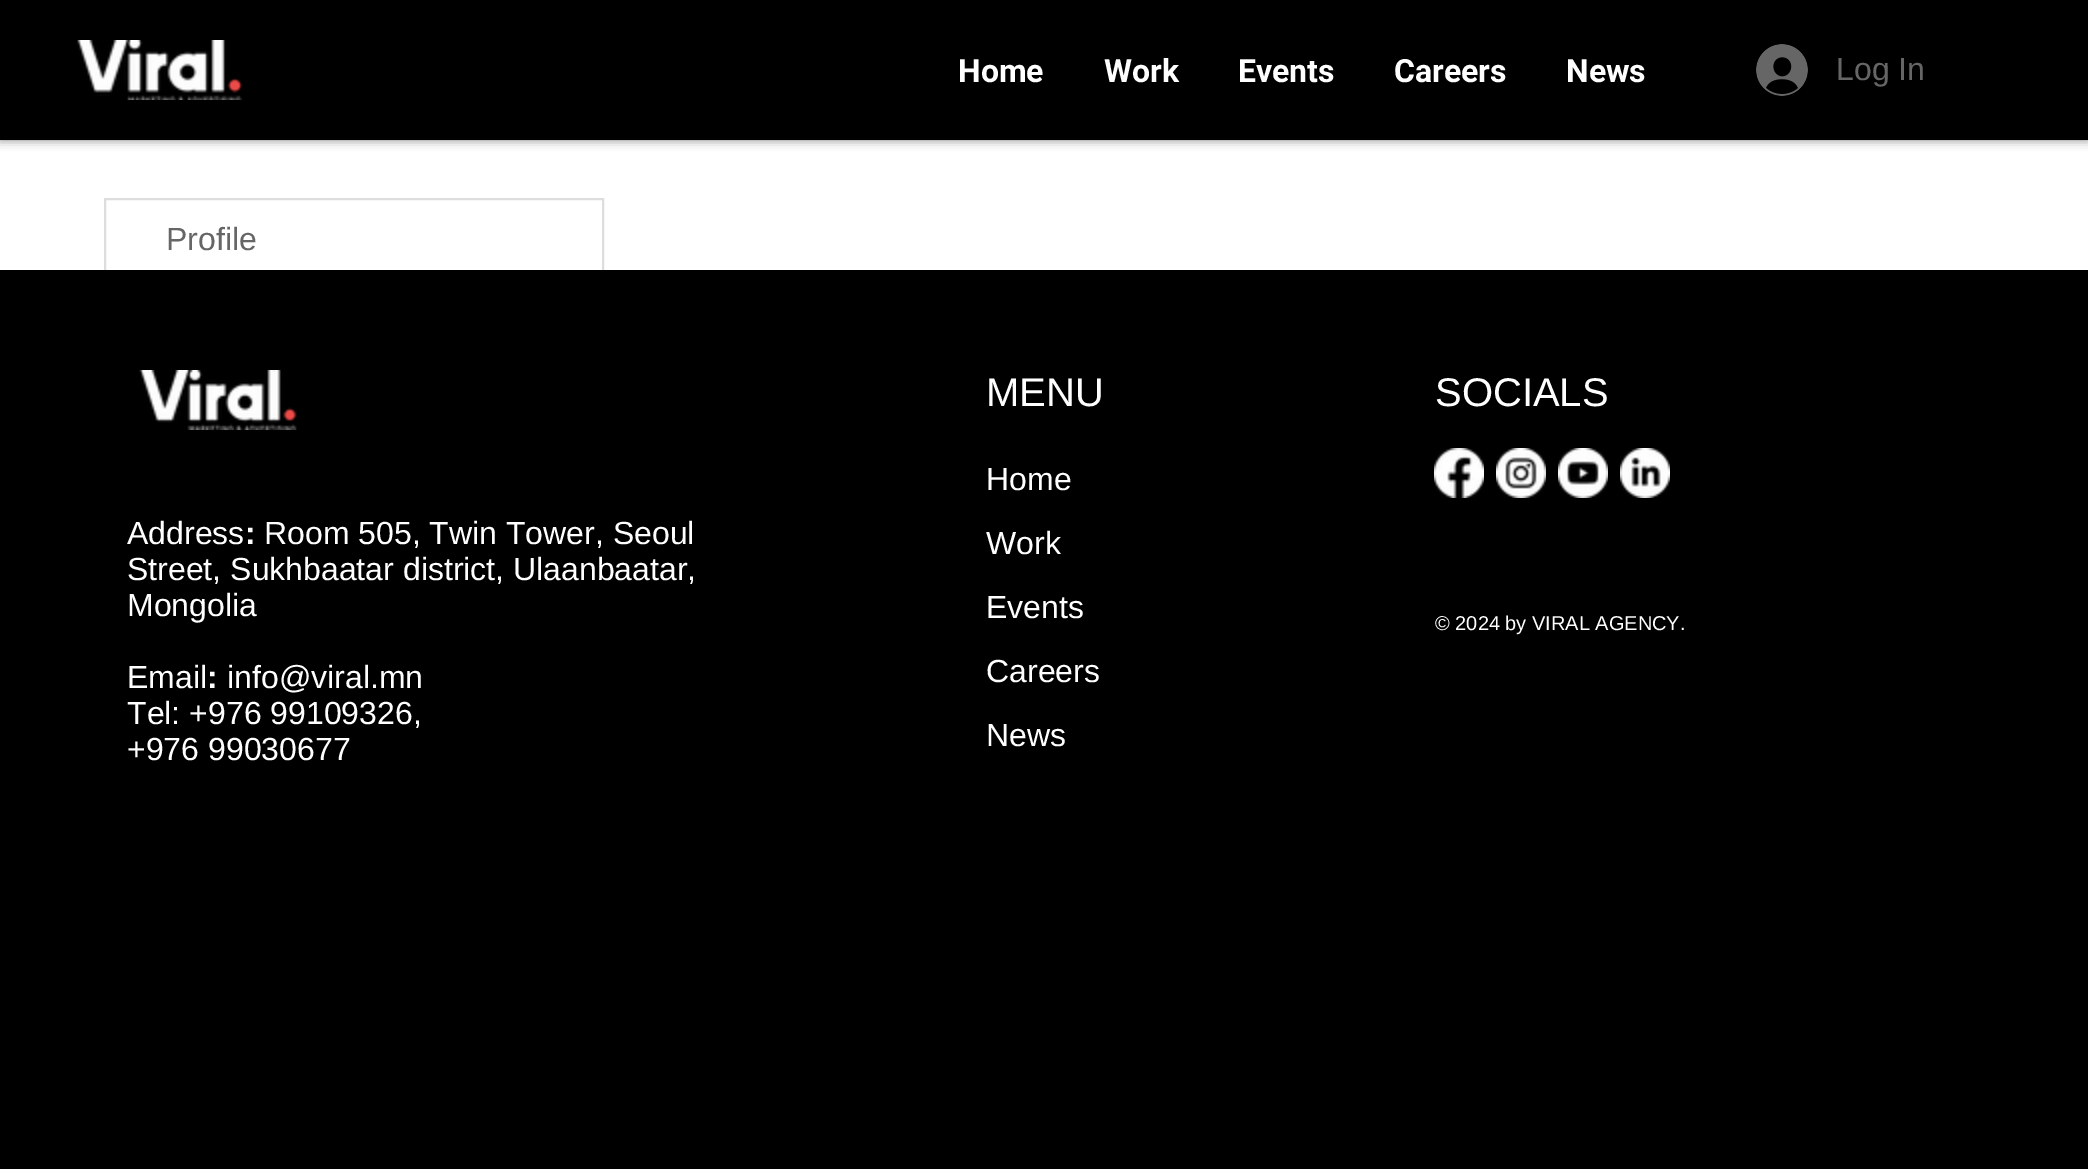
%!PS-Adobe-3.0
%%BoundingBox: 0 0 2088 1169
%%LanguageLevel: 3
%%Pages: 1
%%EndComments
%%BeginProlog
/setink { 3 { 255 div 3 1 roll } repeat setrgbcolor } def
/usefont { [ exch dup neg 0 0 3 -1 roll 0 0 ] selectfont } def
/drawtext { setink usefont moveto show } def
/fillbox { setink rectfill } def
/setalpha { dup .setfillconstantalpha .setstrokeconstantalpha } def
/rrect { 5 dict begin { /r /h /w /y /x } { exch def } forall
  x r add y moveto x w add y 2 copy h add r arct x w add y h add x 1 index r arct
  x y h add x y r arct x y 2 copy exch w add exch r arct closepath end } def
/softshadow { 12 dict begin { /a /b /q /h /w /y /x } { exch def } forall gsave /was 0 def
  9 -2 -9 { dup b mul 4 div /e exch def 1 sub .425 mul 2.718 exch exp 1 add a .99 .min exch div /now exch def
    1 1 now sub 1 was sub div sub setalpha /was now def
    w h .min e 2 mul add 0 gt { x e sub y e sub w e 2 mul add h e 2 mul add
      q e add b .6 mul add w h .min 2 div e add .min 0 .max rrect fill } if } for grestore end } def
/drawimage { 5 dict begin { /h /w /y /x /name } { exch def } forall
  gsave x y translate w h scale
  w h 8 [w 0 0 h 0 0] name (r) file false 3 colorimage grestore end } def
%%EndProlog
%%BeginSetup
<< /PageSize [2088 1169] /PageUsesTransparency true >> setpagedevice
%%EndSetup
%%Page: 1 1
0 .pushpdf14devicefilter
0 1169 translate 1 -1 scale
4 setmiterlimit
0 0 2088 1169 255 255 255 fillbox
0 0 0 setink
0 0 2088 140 0 5 0.5 softshadow
0 0 2088 140 0 0 0 fillbox
(assets/img1.rgb) 77 40 166 60 drawimage
(Home) 958 82 /Roboto-Bold 32 255 255 255 drawtext
(Work) 1104 82 /Roboto-Bold 32 255 255 255 drawtext
(Events) 1238 82 /Roboto-Bold 32 255 255 255 drawtext
(Careers) 1394 82 /Roboto-Bold 32 255 255 255 drawtext
(News) 1566 82 /Roboto-Bold 32 255 255 255 drawtext
(assets/img2.rgb) 1756 44 52 52 drawimage
(Log In) 1836 80 /LiberationSans-Regular 32 102 102 102 drawtext
221 221 221 setink
2 setlinewidth
105 199 498 82 rectstroke
(Profile) 166 250 /LiberationSans-Regular 32 102 102 102 drawtext
0 270 2088 899 0 0 0 fillbox
(assets/img3.rgb) 139 370 158 60 drawimage
(Address) 127 544 /LiberationSans-Regular 32 255 255 255 drawtext
(:) 245 544 /LiberationSans-Bold 32 255 255 255 drawtext
(Room 505, Twin Tower, Seoul) 264 544 /LiberationSans-Regular 32 255 255 255 drawtext
(Street, Sukhbaatar district, Ulaanbaatar,) 127 580 /LiberationSans-Regular 32 255 255 255 drawtext
(Mongolia) 127 616 /LiberationSans-Regular 32 255 255 255 drawtext
(Email) 127 688 /LiberationSans-Regular 32 255 255 255 drawtext
(:) 207 688 /LiberationSans-Bold 32 255 255 255 drawtext
(info@viral.mn) 227 688 /LiberationSans-Regular 32 255 255 255 drawtext
(Tel: +976 99109326,) 127 724 /LiberationSans-Regular 32 255 255 255 drawtext
(+976 99030677) 127 760 /LiberationSans-Regular 32 255 255 255 drawtext
(MENU) 986 406 /LiberationSans-Regular 40 255 255 255 drawtext
(Home) 986 490 /LiberationSans-Regular 32 255 255 255 drawtext
(Work) 986 554 /LiberationSans-Regular 32 255 255 255 drawtext
(Events) 986 618 /LiberationSans-Regular 32 255 255 255 drawtext
(Careers) 986 682 /LiberationSans-Regular 32 255 255 255 drawtext
(News) 986 746 /LiberationSans-Regular 32 255 255 255 drawtext
(SOCIALS) 1435 406 /LiberationSans-Regular 40 255 255 255 drawtext
(assets/img4.rgb) 1434 448 50 50 drawimage
(assets/img5.rgb) 1496 448 50 50 drawimage
(assets/img6.rgb) 1558 448 50 50 drawimage
(assets/img7.rgb) 1620 448 50 50 drawimage
(© 2024 by VIRAL AGENCY.) 1435 630 /LiberationSans-Regular 20 255 255 255 drawtext
.poppdf14devicefilter showpage
%%EOF
